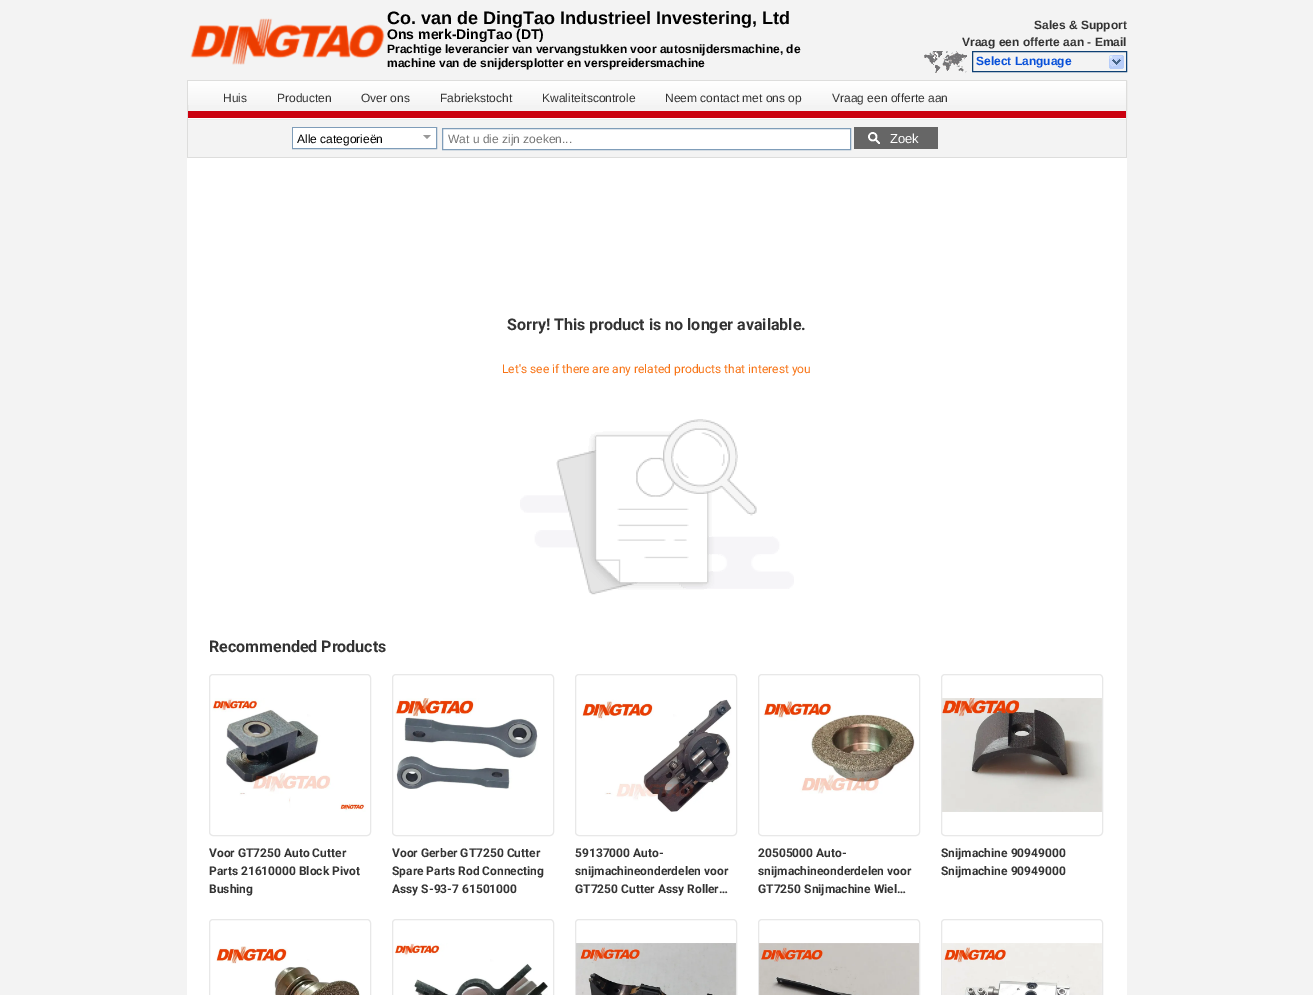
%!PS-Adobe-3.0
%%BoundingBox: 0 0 1313 995
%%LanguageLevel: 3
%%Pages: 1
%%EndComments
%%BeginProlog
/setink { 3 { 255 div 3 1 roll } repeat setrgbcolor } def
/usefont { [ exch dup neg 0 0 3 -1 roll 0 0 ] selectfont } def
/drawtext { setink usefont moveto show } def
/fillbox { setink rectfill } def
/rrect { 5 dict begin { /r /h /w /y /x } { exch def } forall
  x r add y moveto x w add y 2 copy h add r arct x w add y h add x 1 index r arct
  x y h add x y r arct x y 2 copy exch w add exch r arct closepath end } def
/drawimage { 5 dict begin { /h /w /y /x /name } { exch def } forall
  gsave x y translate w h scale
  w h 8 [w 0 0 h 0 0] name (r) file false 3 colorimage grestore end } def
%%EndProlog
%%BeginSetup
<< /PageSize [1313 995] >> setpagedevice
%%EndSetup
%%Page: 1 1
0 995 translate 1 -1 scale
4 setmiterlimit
0 0 1313 995 243 243 243 fillbox
(assets/img1.rgb) 190 18 195 47 drawimage
(Co. van de DingTao Industrieel Investering, Ltd) 387 24 /LiberationSans-Bold 18 0 0 0 drawtext
(Ons merk-DingTao \(DT\)) 387 39 /LiberationSans-Bold 14 0 0 0 drawtext
(Prachtige leverancier van vervangstukken voor autosnijdersmachine, de) 387 53 /LiberationSans-Bold 12 0 0 0 drawtext
(machine van de snijdersplotter en verspreidersmachine) 387 67 /LiberationSans-Bold 12 0 0 0 drawtext
(Sales & Support) 1034 29 /LiberationSans-Bold 12 51 51 51 drawtext
(Vraag een offerte aan - Email) 962 46 /LiberationSans-Bold 12 51 51 51 drawtext
(assets/img2.rgb) 924 51 43 22 drawimage
14 64 116 setink
972.5 51.5 154 20 rectstroke
(Select Language) 976 65 /LiberationSans-Bold 12 7 80 217 drawtext
(assets/img3.rgb) 1109 55 15 14 drawimage
221 221 220 setink
187.5 80.5 939 38 0.5 rrect stroke
gsave 188 81 moveto 1126 81 lineto 1126 105 lineto 188 105 lineto closepath clip newpath
<< /ShadingType 2 /ColorSpace /DeviceRGB /Coords [657 81 657 111] /Extend [true true] /Function << /FunctionType 2 /Domain [0 1] /C0 [1 1 1] /C1 [0.953 0.949 0.949] /N 1 >> >> shfill grestore
188 111 938 7 203 0 15 fillbox
(Huis) 223 102 /LiberationSans-Regular 12 51 51 51 drawtext
(Producten) 277 102 /LiberationSans-Regular 12 51 51 51 drawtext
(Over ons) 361 102 /LiberationSans-Regular 12 51 51 51 drawtext
(Fabriekstocht) 440 102 /LiberationSans-Regular 12 51 51 51 drawtext
(Kwaliteitscontrole) 542 102 /LiberationSans-Regular 12 51 51 51 drawtext
(Neem contact met ons op) 665 102 /LiberationSans-Regular 12 51 51 51 drawtext
(Vraag een offerte aan) 832 102 /LiberationSans-Regular 12 51 51 51 drawtext
127 157 185 setink
292.5 127.5 144 21 rectstroke
293 128 143 20 255 255 255 fillbox
(Alle categorieën) 297 143 /LiberationSans-Regular 12 0 0 0 drawtext
153 153 153 setink
423 135 moveto 431 135 lineto 427 139 lineto closepath fill
187 118 940 1 255 255 255 fillbox
1126 118 1 40 221 221 220 fillbox
187 157 940 1 221 221 220 fillbox
187 118 1 40 221 221 220 fillbox
255 255 255 setink
442.5 128.5 moveto 850.5 128.5 lineto 850.5 149.5 lineto 442.5 149.5 lineto closepath gsave fill grestore
127 157 185 setink
stroke
(Wat u die zijn zoeken...) 448 143 /LiberationSans-Regular 12 117 117 117 drawtext
854 127 84 22 102 102 102 fillbox
(assets/img4.rgb) 868 132 12 12 drawimage
(Zoek) 890 143 /LiberationSans-Regular 13 255 255 255 drawtext
187 158 940 837 255 255 255 fillbox
(Sorry! This product is no longer available.) 507 330 /Roboto-Bold 16 51 51 51 drawtext
(Let's see if there are any related products that interest you) 502 373 /Roboto-Regular 12 248 116 22 drawtext
(assets/img5.rgb) 520 419 274 176 drawimage
(Recommended Products) 209 652 /Roboto-Bold 16 51 51 51 drawtext
232 232 232 setink
209.5 674.5 161 161 3.5 rrect stroke
(assets/img6.rgb) 212 698 154 114 drawimage
(Voor GT7250 Auto Cutter) 209 857 /Roboto-Bold 12 51 51 51 drawtext
(Parts 21610000 Block Pivot) 209 875 /Roboto-Bold 12 51 51 51 drawtext
(Bushing) 209 893 /Roboto-Bold 12 51 51 51 drawtext
232 232 232 setink
392.5 674.5 161 161 3.5 rrect stroke
(assets/img7.rgb) 395 698 143 91 drawimage
(Voor Gerber GT7250 Cutter) 392 857 /Roboto-Bold 12 51 51 51 drawtext
(Spare Parts Rod Connecting) 392 875 /Roboto-Bold 12 51 51 51 drawtext
(Assy S-93-7 61501000) 392 893 /Roboto-Bold 12 51 51 51 drawtext
232 232 232 setink
575.5 674.5 161 161 3.5 rrect stroke
(assets/img8.rgb) 582 699 150 113 drawimage
(59137000 Auto-) 575 857 /Roboto-Bold 12 51 51 51 drawtext
(snijmachineonderdelen voor) 575 875 /Roboto-Bold 12 51 51 51 drawtext
(GT7250 Cutter Assy Roller…) 575 893 /Roboto-Bold 12 51 51 51 drawtext
232 232 232 setink
758.5 674.5 161 161 3.5 rrect stroke
(assets/img9.rgb) 763 700 152 94 drawimage
(20505000 Auto-) 758 857 /Roboto-Bold 12 51 51 51 drawtext
(snijmachineonderdelen voor) 758 875 /Roboto-Bold 12 51 51 51 drawtext
(GT7250 Snijmachine Wiel…) 758 893 /Roboto-Bold 12 51 51 51 drawtext
232 232 232 setink
941.5 674.5 161 161 3.5 rrect stroke
(assets/img10.rgb) 942 698 160 114 drawimage
(Snijmachine 90949000) 941 857 /Roboto-Bold 12 51 51 51 drawtext
(Snijmachine 90949000) 941 875 /Roboto-Bold 12 51 51 51 drawtext
232 232 232 setink
209.5 919.5 161 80 3.5 rrect stroke
(assets/img11.rgb) 216 946 144 49 drawimage
392.5 919.5 161 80 3.5 rrect stroke
(assets/img12.rgb) 395 943 153 52 drawimage
575.5 919.5 161 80 3.5 rrect stroke
(assets/img13.rgb) 576 943 160 52 drawimage
758.5 919.5 161 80 3.5 rrect stroke
(assets/img14.rgb) 759 943 160 52 drawimage
941.5 919.5 161 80 3.5 rrect stroke
(assets/img15.rgb) 942 943 160 52 drawimage
showpage
%%EOF
